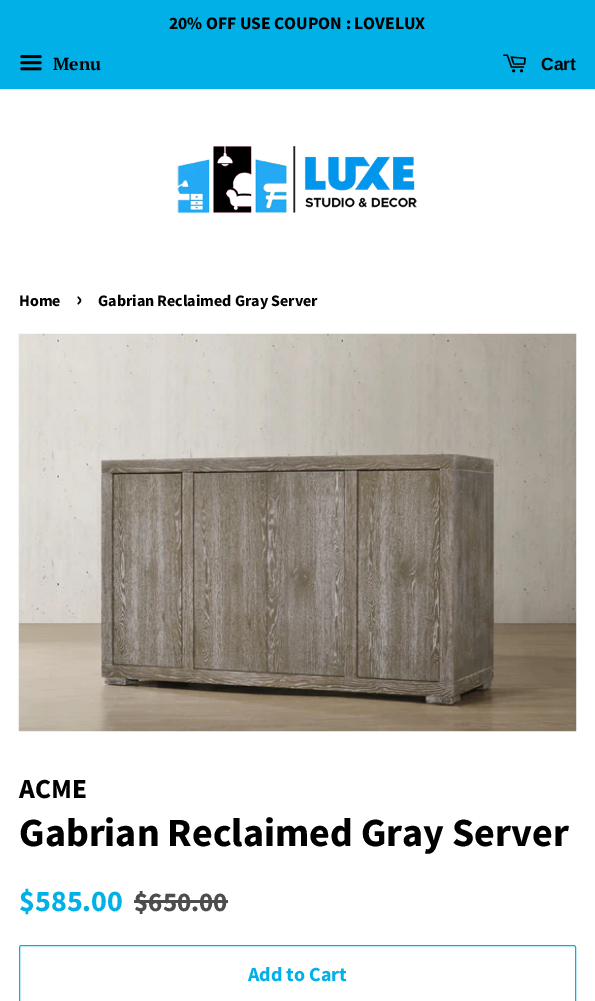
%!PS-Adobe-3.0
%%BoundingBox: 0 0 595 1001
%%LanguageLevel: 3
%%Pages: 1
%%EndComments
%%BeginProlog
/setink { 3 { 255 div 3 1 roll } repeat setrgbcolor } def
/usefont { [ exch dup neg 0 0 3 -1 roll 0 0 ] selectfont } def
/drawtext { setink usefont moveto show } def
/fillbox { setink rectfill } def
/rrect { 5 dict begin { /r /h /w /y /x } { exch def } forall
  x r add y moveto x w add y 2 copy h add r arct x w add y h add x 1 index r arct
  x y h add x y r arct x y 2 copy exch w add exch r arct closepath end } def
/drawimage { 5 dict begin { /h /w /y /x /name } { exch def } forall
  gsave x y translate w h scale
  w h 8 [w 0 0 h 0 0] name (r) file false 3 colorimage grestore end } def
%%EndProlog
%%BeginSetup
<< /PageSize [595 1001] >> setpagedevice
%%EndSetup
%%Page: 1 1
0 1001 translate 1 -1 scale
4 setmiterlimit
0 0 595 1001 255 255 255 fillbox
0 0 595 89 0 176 230 fillbox
(20% OFF USE COUPON : LOVELUX) 169 29 /SourceSansPro-Bold 17.5 0 0 0 drawtext
(assets/img1.rgb) 20 55 22 16 drawimage
(Menu) 53 70 /PTSerif-Bold 17.5 0 0 0 drawtext
(assets/img2.rgb) 503 54 23 19 drawimage
(Cart) 541 70 /LiberationSans-Bold 17.5 0 0 0 drawtext
(assets/img3.rgb) 177 146 240 68 drawimage
(Home) 19 306 /SourceSansPro-Bold 16 0 0 0 drawtext
(›) 76 306 /SourceSansPro-Bold 22 0 0 0 drawtext
(Gabrian Reclaimed Gray Server) 98 306 /SourceSansPro-Bold 16 0 0 0 drawtext
(assets/img4.rgb) 18 333 559 399 drawimage
(ACME) 19 798 /SourceSansPro-Bold 27.5 0 0 0 drawtext
(Gabrian Reclaimed Gray Server) 19 846 /SourceSansPro-Bold 40 0 0 0 drawtext
($585.00) 19 911 /SourceSansPro-Bold 30 0 176 230 drawtext
($650.00) 134 911 /SourceSansPro-Bold 27 77 77 77 drawtext
134 900 94 3 77 77 77 fillbox
0 176 230 setink
19.5 945.5 556 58 2 rrect stroke
(Add to Cart) 248 981 /SourceSansPro-Bold 20 0 176 230 drawtext
showpage
%%EOF
